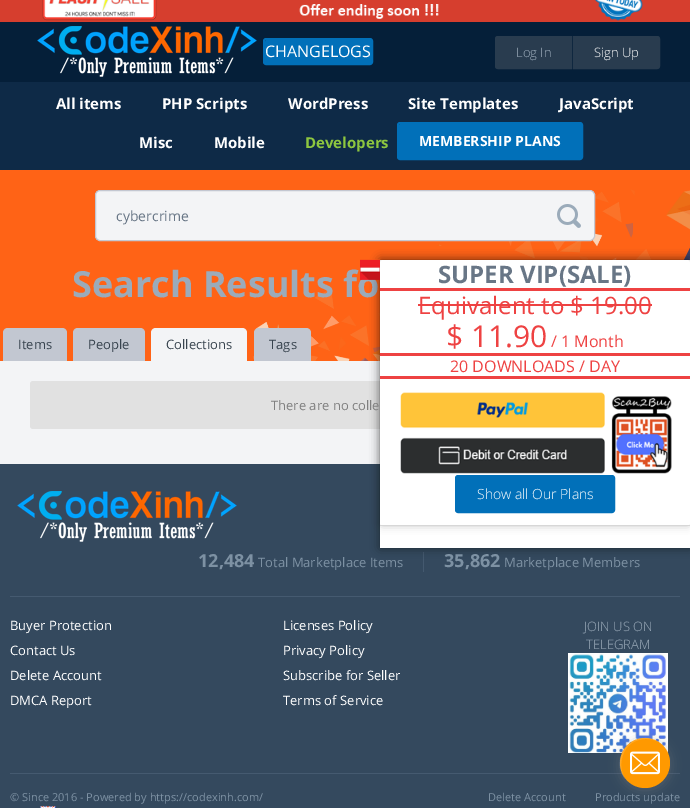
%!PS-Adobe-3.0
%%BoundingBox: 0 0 690 808
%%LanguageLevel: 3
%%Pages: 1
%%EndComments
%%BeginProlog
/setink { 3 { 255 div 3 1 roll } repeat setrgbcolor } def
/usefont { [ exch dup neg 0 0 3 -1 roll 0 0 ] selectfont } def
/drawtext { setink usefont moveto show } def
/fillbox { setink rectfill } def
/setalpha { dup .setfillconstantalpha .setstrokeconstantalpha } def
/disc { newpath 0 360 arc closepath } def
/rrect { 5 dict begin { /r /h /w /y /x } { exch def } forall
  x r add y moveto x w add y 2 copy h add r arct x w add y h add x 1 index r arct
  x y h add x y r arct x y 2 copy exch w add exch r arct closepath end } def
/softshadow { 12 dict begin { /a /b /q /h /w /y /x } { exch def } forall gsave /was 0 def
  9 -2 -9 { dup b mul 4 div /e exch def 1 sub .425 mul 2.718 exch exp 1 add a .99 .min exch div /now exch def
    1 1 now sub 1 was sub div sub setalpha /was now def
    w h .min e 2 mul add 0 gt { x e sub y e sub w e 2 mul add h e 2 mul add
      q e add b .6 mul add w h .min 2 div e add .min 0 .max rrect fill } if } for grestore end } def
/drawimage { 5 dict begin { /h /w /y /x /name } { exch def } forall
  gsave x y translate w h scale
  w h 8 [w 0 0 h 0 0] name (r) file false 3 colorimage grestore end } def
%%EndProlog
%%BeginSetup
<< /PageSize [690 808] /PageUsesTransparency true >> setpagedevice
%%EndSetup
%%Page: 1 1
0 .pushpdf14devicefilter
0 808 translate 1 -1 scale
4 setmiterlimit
0 0 690 808 243 244 246 fillbox
0 0 690 22 214 62 46 fillbox
(assets/img1.rgb) 42 0 601 21 drawimage
0 22 690 60 5 31 57 fillbox
(assets/img2.rgb) 37 26 220 51 drawimage
1 112 185 setink
266 40 moveto 370 40 lineto 371 40 371 40 371 41 curveto 371 62 lineto 265 62 lineto 265 56 264 40 266 40 curveto closepath fill
2 setlinewidth
264 39 108 25 2 rrect stroke
265 62 107 1 1 112 185 fillbox
(CHANGELOGS) 265 57 /OpenSans-Regular 16 255 255 255 drawtext
41 60 79 setink
498 36.5 moveto 571.5 36.5 lineto 571.5 68.5 lineto 498 68.5 lineto 496.5 68.5 495.5 67.5 495.5 66 curveto 495.5 39 lineto 495.5 37.5 496.5 36.5 498 36.5 curveto closepath gsave fill grestore
1 setlinewidth
stroke
(Log In) 516 57 /OpenSans-Light 13 155 171 186 drawtext
41 60 79 setink
573.5 36.5 moveto 657 36.5 lineto 658.5 36.5 659.5 37.5 659.5 39 curveto 659.5 66 lineto 659.5 67.5 658.5 68.5 657 68.5 curveto 573.5 68.5 lineto closepath gsave fill grestore
stroke
(Sign Up) 594 57 /OpenSans-Light 13 255 255 255 drawtext
0 82 690 88 14 42 71 fillbox
(All items) 56 109 /OpenSans-Bold 15 255 255 255 drawtext
(PHP Scripts) 162 109 /OpenSans-Bold 15 255 255 255 drawtext
(WordPress) 288 109 /OpenSans-Bold 15 255 255 255 drawtext
(Site Templates) 408 109 /OpenSans-Bold 15 255 255 255 drawtext
(JavaScript) 559 109 /OpenSans-Bold 15 255 255 255 drawtext
(Misc) 139 148 /OpenSans-Bold 15 255 255 255 drawtext
(Mobile) 214 148 /OpenSans-Bold 15 255 255 255 drawtext
(Developers) 305 148 /OpenSans-Bold 15 141 198 63 drawtext
1 112 185 setink
400 124 moveto 580 124 lineto 581 124 581 124 581 125 curveto 581 157 lineto 399 157 lineto 399 125 lineto closepath fill
2 setlinewidth
398 123 184 36 2 rrect stroke
399 157 183 1 1 112 185 fillbox
(MEMBERSHIP PLANS) 419 146 /OpenSans-Bold 14 255 255 255 drawtext
(assets/img3.rgb) 0 170 690 191 drawimage
243 244 246 setink
95.5 190.5 499 50 4.5 rrect gsave fill grestore
195 199 209 setink
1 setlinewidth
stroke
(cybercrime) 116 221 /OpenSans-Regular 14 104 118 134 drawtext
(assets/img4.rgb) 557 204 24 24 drawimage
(Search Results fo) 72 297 /OpenSans-Bold 36 155 171 186 drawtext
194 199 209 setink
8 328 moveto 62 328 lineto 65 328 67 330 67 333 curveto 67 361 lineto 3 361 lineto 3 333 lineto 3 330 5 328 8 328 curveto closepath fill
(Items) 18 349 /OpenSans-Regular 13 56 68 79 drawtext
194 199 209 setink
78 328 moveto 140 328 lineto 143 328 145 330 145 333 curveto 145 361 lineto 73 361 lineto 73 333 lineto 73 330 75 328 78 328 curveto closepath fill
(People) 88 349 /OpenSans-Regular 13 56 68 79 drawtext
243 244 246 setink
156 328 moveto 242 328 lineto 245 328 247 330 247 333 curveto 247 361 lineto 151 361 lineto 151 333 lineto 151 330 153 328 156 328 curveto closepath fill
(Collections) 166 349 /OpenSans-Regular 13 56 68 79 drawtext
194 199 209 setink
259 328 moveto 306 328 lineto 309 328 311 330 311 333 curveto 311 361 lineto 254 361 lineto 254 333 lineto 254 330 256 328 259 328 curveto closepath fill
(Tags) 269 349 /OpenSans-Regular 13 56 68 79 drawtext
225 225 225 setink
30 381 630 48 3 rrect fill
0 464 690 344 52 73 94 fillbox
423 552 1 20 68 89 111 fillbox
0 0 0 setink
380 260 310 288 0 5 0.5 softshadow
380 260 310 288 255 255 255 fillbox
0 0 0 setink
380 260 310 266 3 4 0.2 softshadow
(assets/img5.rgb) 360 259 20 21 drawimage
255 255 255 setink
380 260 310 266 3 rrect fill
380 288 310 3 238 66 66 fillbox
(SUPER VIP\(SALE\)) 438 283 /OpenSans-Bold 24 104 118 134 drawtext
380 353 310 3 238 66 66 fillbox
(Equivalent to $ 19.00) 418 314 /OpenSans-Regular 24 238 66 66 drawtext
418 304 234 2 238 66 66 fillbox
($ 11.90) 446 347 /OpenSans-Regular 30 238 66 66 drawtext
(/ 1 Month) 551 347 /OpenSans-Regular 16 238 66 66 drawtext
380 376 310 3 238 66 66 fillbox
(20 DOWNLOADS / DAY) 450 372 /OpenSans-Regular 16 238 66 66 drawtext
380 525 310 1 215 215 215 fillbox
(assets/img6.rgb) 400 392 272 82 drawimage
1 112 185 setink
458 477 moveto 612 477 lineto 613 477 613 477 613 478 curveto 613 510 lineto 457 510 lineto 457 477 lineto closepath fill
2 setlinewidth
456 476 158 36 2 rrect stroke
457 510 157 1 1 112 185 fillbox
(Show all Our Plans) 477 499 /OpenSans-Light 14 255 255 255 drawtext
(There are no colle) 271 410 /OpenSans-Regular 13 128 128 128 drawtext
(assets/img7.rgb) 17 491 220 51 drawimage
(12,484) 198 567 /OpenSans-Bold 18 125 145 163 drawtext
(Total Marketplace Items) 258 567 /OpenSans-Regular 13 125 145 163 drawtext
(35,862) 444 567 /OpenSans-Bold 18 125 145 163 drawtext
(Marketplace Members) 504 567 /OpenSans-Regular 13 125 145 163 drawtext
10 596 670 1 69 90 112 fillbox
10 773 670 1 69 90 112 fillbox
(Buyer Protection) 10 630 /OpenSans-Regular 13 255 255 255 drawtext
(Contact Us) 10 655 /OpenSans-Regular 13 255 255 255 drawtext
(Delete Account) 10 680 /OpenSans-Regular 13 255 255 255 drawtext
(DMCA Report) 10 705 /OpenSans-Regular 13 255 255 255 drawtext
(Licenses Policy) 283 630 /OpenSans-Regular 13 255 255 255 drawtext
(Privacy Policy) 283 655 /OpenSans-Regular 13 255 255 255 drawtext
(Subscribe for Seller) 283 680 /OpenSans-Regular 13 255 255 255 drawtext
(Terms of Service) 283 705 /OpenSans-Regular 13 255 255 255 drawtext
(JOIN US ON) 584 631 /OpenSans-Light 13 155 171 186 drawtext
(TELEGRAM) 586 649 /OpenSans-Light 13 155 171 186 drawtext
(assets/img8.rgb) 568 653 100 100 drawimage
(© Since 2016 - Powered by https://codexinh.com/) 10 801 /OpenSans-Regular 11 125 145 163 drawtext
(Delete Account) 488 801 /OpenSans-Regular 11 125 145 163 drawtext
(Products update) 595 801 /OpenSans-Regular 11 125 145 163 drawtext
(assets/img9.rgb) 40 806 16 2 drawimage
128 128 128 setink
620 740 50 50 25 5.5 0.4 softshadow
255 153 0 setink
645 763 25 disc fill
0.15 setalpha
255 255 255 setink
646 739 moveto 651 739 655 740 659 742 curveto 635 727 608 757 625 779 curveto 616 764 623 739 646 739 curveto closepath fill
1 setalpha
(assets/img10.rgb) 630 751 30 24 drawimage
.poppdf14devicefilter showpage
%%EOF
